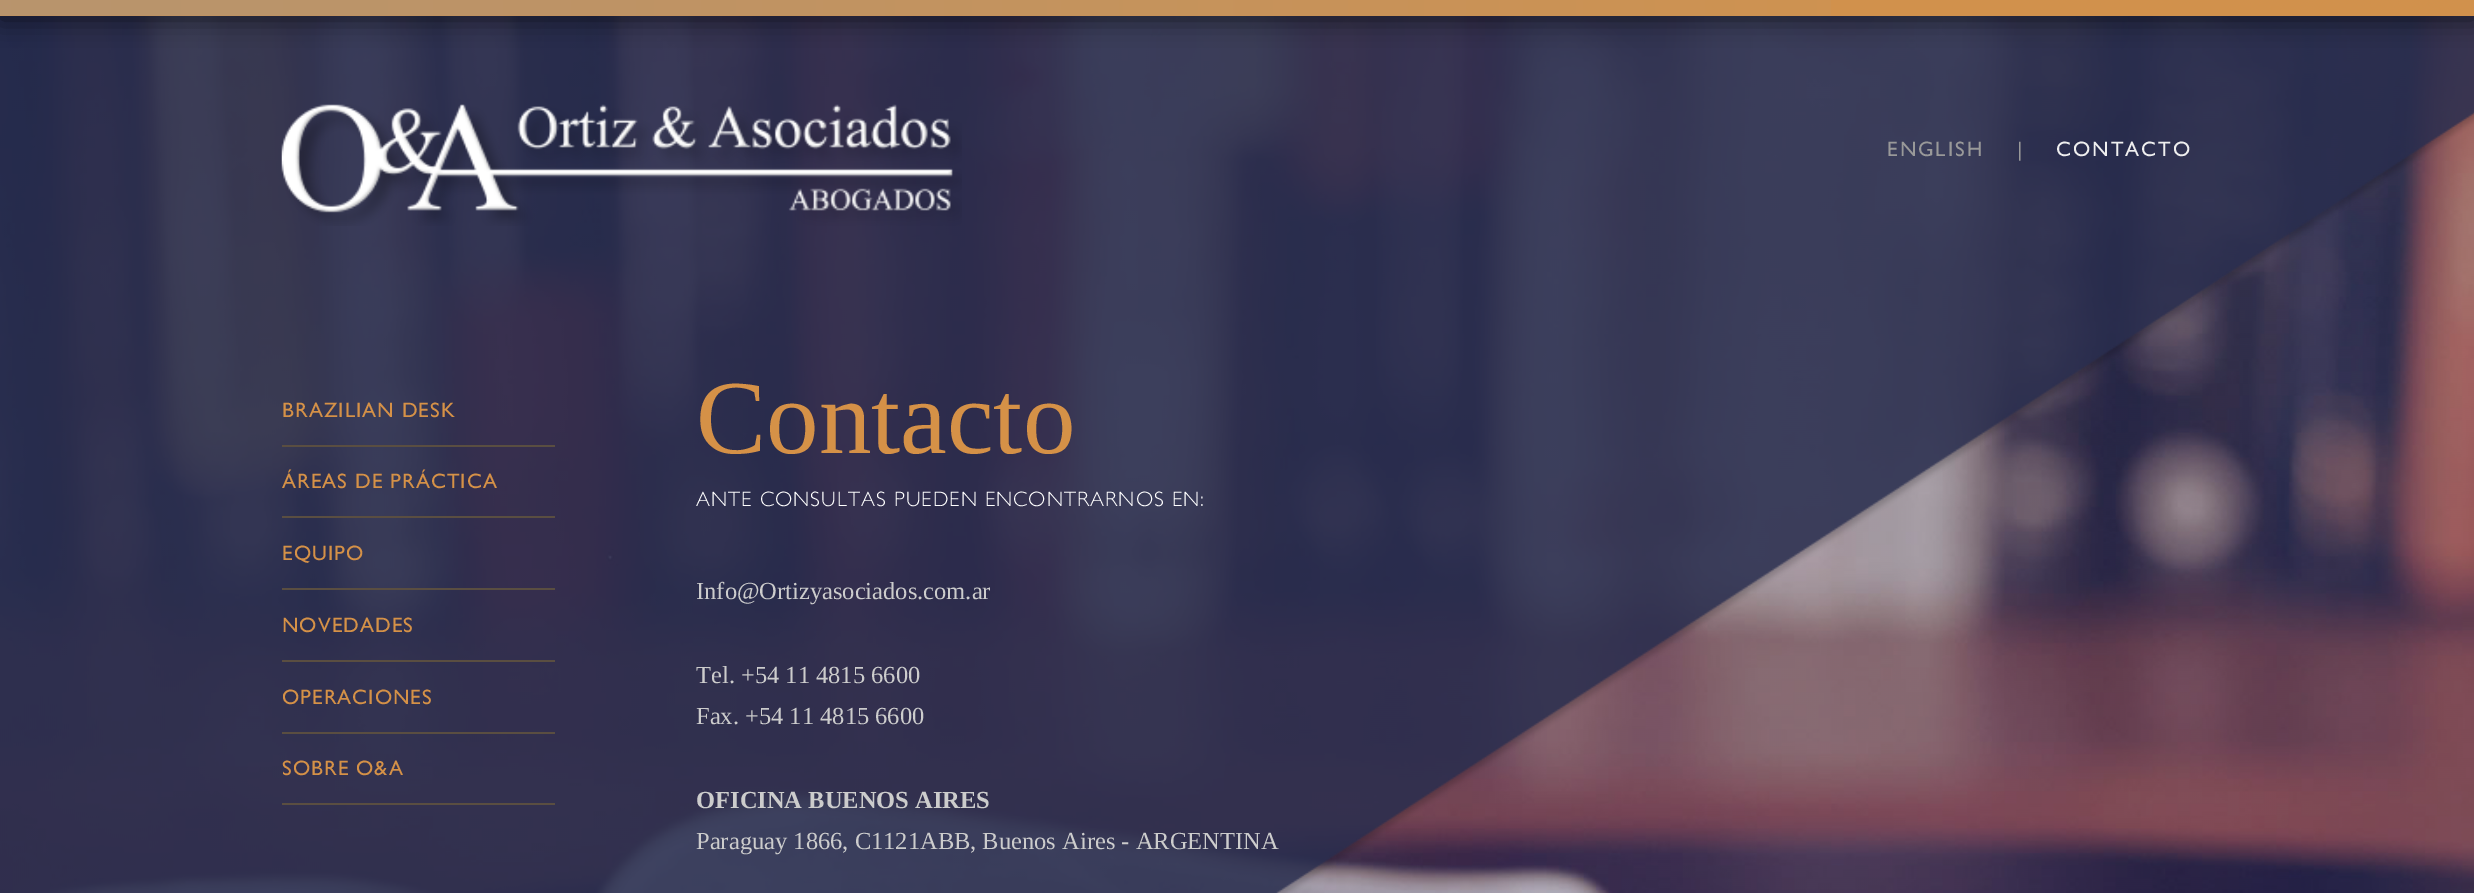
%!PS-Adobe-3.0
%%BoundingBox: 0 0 2474 893
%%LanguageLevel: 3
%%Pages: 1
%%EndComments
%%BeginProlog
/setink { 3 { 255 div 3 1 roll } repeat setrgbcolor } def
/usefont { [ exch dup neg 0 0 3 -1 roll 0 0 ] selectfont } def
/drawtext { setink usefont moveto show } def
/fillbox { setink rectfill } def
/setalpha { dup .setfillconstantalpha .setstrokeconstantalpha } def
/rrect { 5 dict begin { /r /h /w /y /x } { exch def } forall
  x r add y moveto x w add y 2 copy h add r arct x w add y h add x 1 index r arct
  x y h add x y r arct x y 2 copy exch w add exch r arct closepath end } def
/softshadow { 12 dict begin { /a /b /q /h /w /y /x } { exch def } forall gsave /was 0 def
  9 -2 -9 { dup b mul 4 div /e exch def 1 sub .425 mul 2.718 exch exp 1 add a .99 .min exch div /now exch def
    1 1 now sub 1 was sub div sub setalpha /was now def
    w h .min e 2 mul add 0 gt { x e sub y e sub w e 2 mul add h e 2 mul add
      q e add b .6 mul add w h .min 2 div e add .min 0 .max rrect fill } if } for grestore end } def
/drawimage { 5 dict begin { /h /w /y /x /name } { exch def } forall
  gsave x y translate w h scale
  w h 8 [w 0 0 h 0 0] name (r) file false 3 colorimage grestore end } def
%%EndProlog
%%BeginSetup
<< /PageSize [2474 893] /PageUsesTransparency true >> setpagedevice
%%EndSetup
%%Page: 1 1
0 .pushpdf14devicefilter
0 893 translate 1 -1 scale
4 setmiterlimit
0 0 2474 893 255 255 255 fillbox
(assets/img1.rgb) 0 16 2474 877 drawimage
0 0 0 setink
0 4 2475 15 0 13 0.6 softshadow
0 0 2474 16 209 145 76 fillbox
(assets/img2.rgb) 0 0 1831 16 drawimage
(assets/img3.rgb) 281 104 681 122 drawimage
/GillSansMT-Regular 21 usefont
153 153 153 setink
1887 156 moveto 2 0 (ENGLISH) ashow
2017 156 moveto 2 0 (|) ashow
239 239 239 setink
2056 156 moveto 2 0 (CONTACTO) ashow
282 445 273 2 90 78 65 fillbox
213 145 71 setink
282 417 moveto 1.05 0 (BRAZILIAN DESK) ashow
282 516 273 2 90 78 65 fillbox
213 145 71 setink
282 488 moveto 1.05 0 (ÁREAS DE PRÁCTICA) ashow
282 588 273 2 90 78 65 fillbox
213 145 71 setink
282 560 moveto 1.05 0 (EQUIPO) ashow
282 660 273 2 90 78 65 fillbox
213 145 71 setink
282 632 moveto 1.05 0 (NOVEDADES) ashow
282 732 273 2 90 78 65 fillbox
213 145 71 setink
282 704 moveto 1.05 0 (OPERACIONES) ashow
282 803 273 2 90 78 65 fillbox
213 145 71 setink
282 775 moveto 1.05 0 (SOBRE O&A) ashow
(Contacto) 696 453 /LiberationSerif-Regular 105 213 145 71 drawtext
/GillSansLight-Light 21 usefont
255 255 255 setink
696 506 moveto 1.05 0 (ANTE CONSULTAS PUEDEN ENCONTRARNOS EN:) ashow
(Info@Ortizyasociados.com.ar) 696 599 /LiberationSerif-Regular 24.5 204 204 204 drawtext
(Tel. +54 11 4815 6600) 696 683 /LiberationSerif-Regular 24.5 204 204 204 drawtext
(Fax. +54 11 4815 6600) 696 724 /LiberationSerif-Regular 24.5 204 204 204 drawtext
(OFICINA BUENOS AIRES) 696 808 /LiberationSerif-Bold 24.5 204 204 204 drawtext
(Paraguay 1866, C1121ABB, Buenos Aires - ARGENTINA) 696 849 /LiberationSerif-Regular 24.5 204 204 204 drawtext
.poppdf14devicefilter showpage
%%EOF
